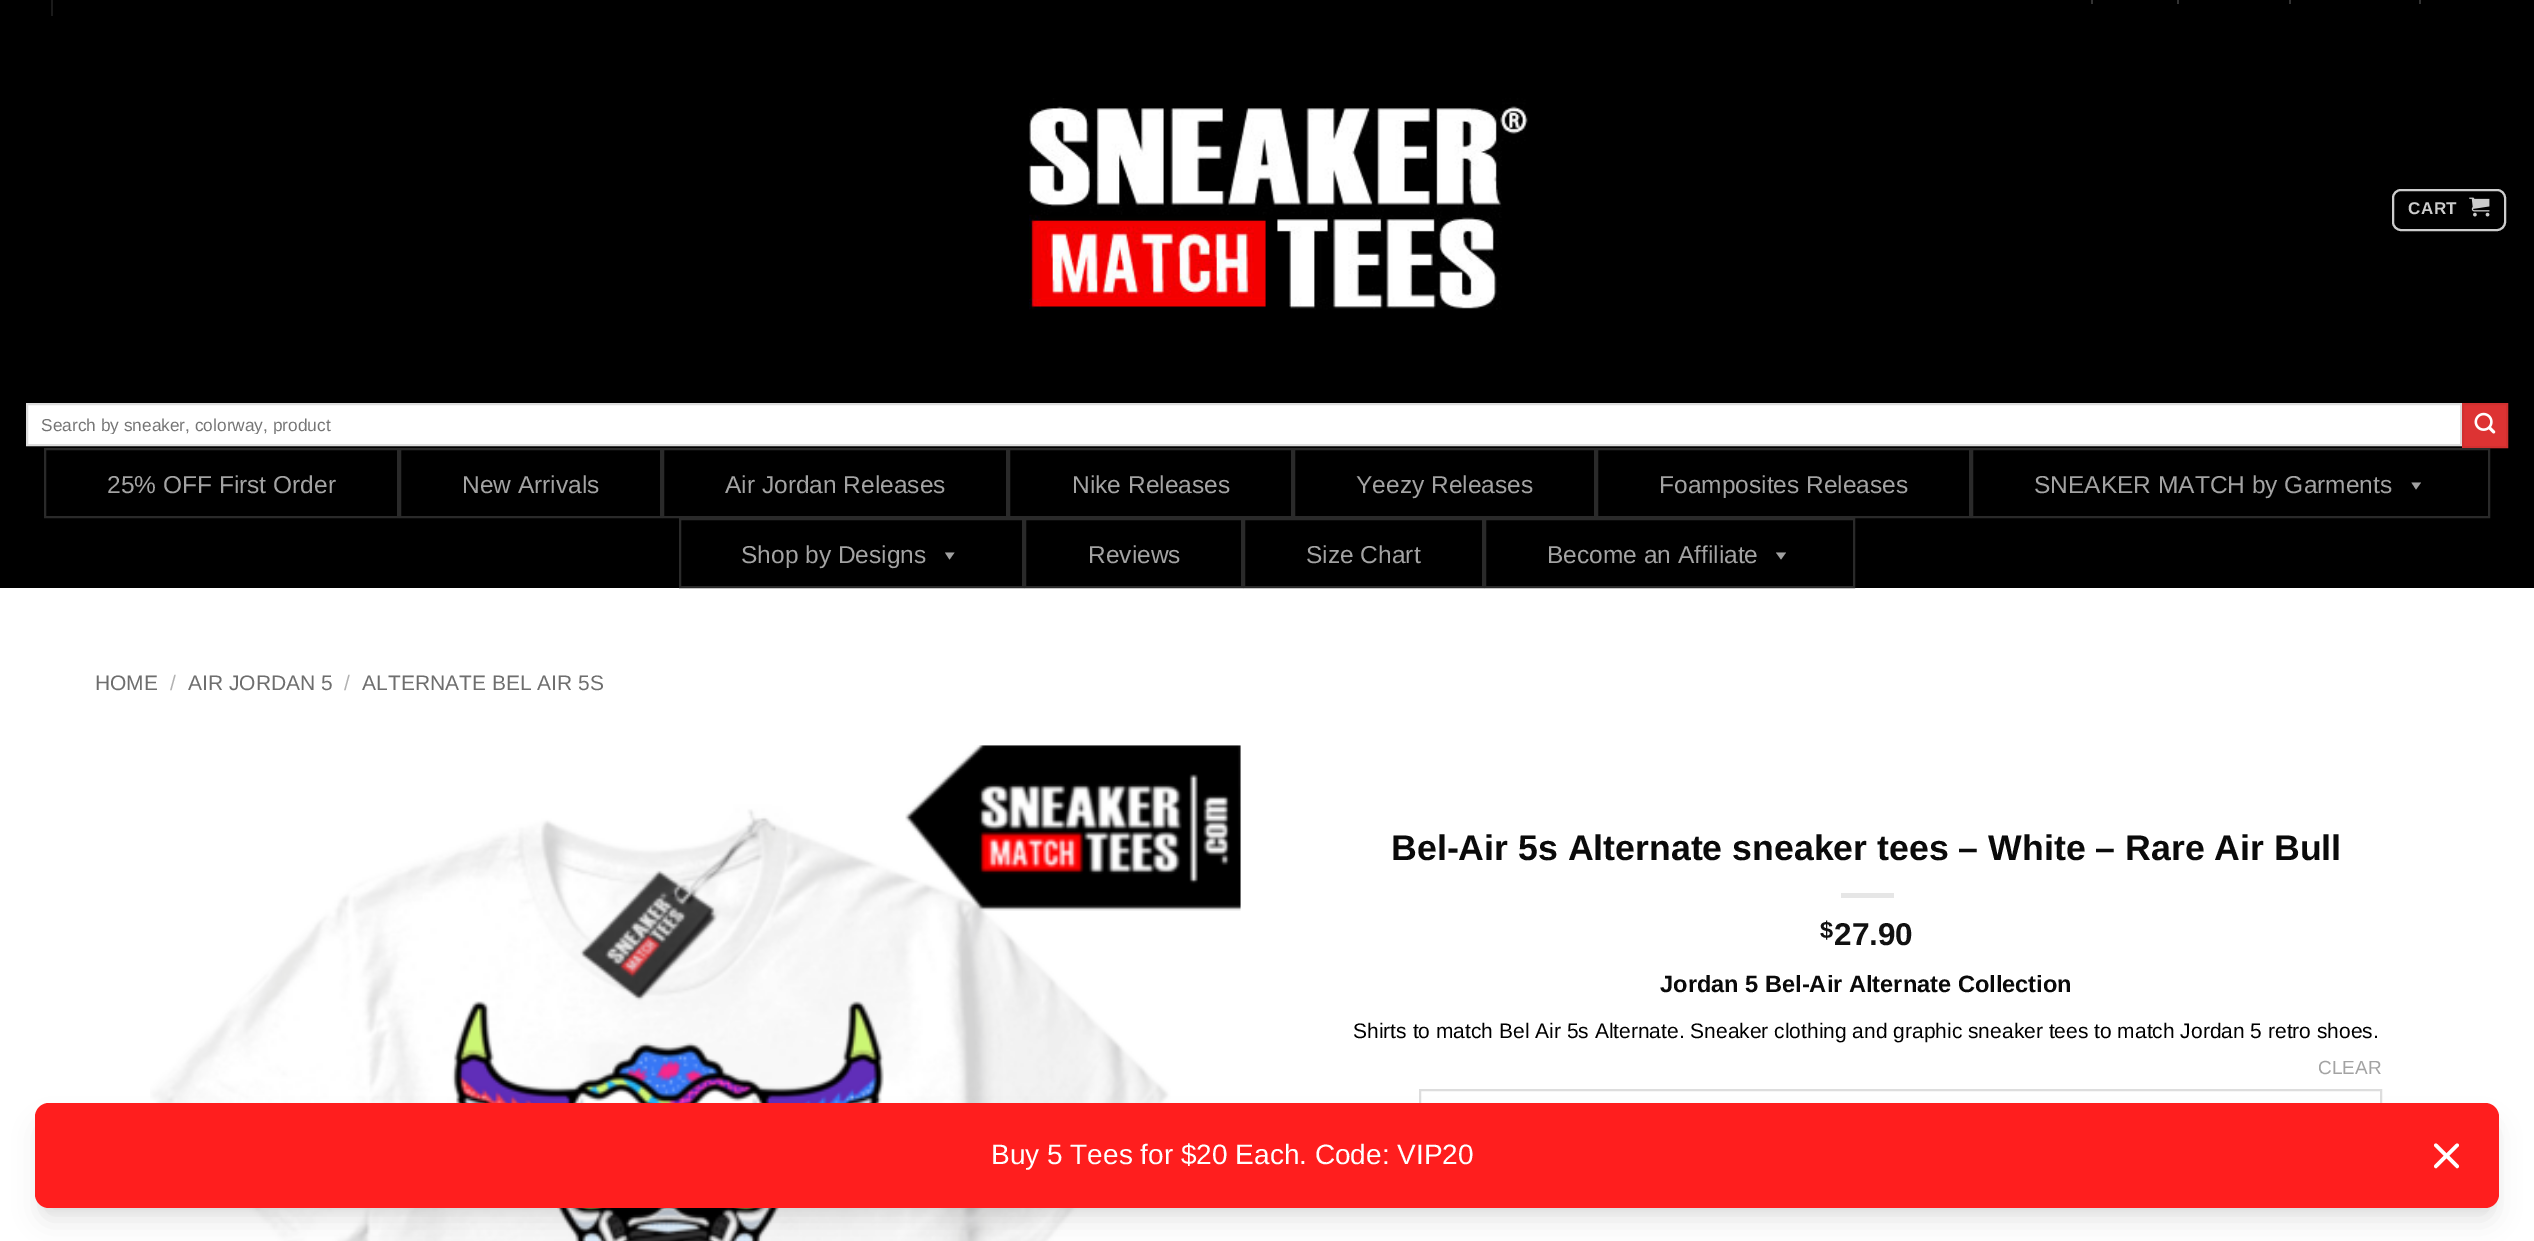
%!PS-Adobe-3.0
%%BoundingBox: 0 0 2534 1241
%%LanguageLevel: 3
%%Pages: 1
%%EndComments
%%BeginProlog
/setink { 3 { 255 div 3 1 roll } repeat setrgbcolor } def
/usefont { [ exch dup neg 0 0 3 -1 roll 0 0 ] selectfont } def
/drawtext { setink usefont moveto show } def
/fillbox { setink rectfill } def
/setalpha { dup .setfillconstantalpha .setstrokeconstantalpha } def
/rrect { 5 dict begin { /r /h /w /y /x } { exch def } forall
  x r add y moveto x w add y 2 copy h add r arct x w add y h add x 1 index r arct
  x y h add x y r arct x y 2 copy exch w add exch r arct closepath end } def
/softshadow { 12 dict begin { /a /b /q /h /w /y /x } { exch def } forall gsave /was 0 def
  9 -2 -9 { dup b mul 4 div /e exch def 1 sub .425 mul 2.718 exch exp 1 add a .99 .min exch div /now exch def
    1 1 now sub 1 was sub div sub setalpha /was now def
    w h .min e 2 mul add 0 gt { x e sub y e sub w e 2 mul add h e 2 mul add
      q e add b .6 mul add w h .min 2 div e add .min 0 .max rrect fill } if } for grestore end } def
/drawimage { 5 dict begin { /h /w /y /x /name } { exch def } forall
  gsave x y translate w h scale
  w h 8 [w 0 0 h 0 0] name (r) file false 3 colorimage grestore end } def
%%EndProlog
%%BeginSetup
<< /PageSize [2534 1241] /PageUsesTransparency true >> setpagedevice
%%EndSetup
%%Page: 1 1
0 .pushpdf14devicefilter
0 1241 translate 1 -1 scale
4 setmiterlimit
0 0 2534 1241 255 255 255 fillbox
0 0 2534 588 0 0 0 fillbox
51 0 2 16 26 26 26 fillbox
2091 0 2 4 51 51 51 fillbox
2177 0 2 4 51 51 51 fillbox
2289 0 2 4 51 51 51 fillbox
2419 0 2 4 51 51 51 fillbox
(assets/img1.rgb) 1029 98 499 212 drawimage
204 204 204 setink
2 setlinewidth
2393 190 112 40 8 rrect stroke
/LiberationSans-Bold 17 usefont
2408 214 moveto 0.5 0 (CART) ashow
(assets/img2.rgb) 2469 197 21 20 drawimage
255 255 255 setink
27 404 moveto 2461 404 lineto 2461 445 lineto 27 445 lineto closepath gsave fill grestore
221 221 221 setink
stroke
gsave
40 415 2401 19 rectclip
(Search by sneaker, colorway, product) 41 431 /LiberationSans-Regular 17.3 117 117 117 drawtext
grestore
221 51 51 setink
2463 404 moveto 2507 404 lineto 2507 447 lineto 2463 447 lineto closepath gsave fill grestore
210 48 48 setink
stroke
(assets/img3.rgb) 2474 412 22 22 drawimage
42 42 42 setink
45 449 353 68 rectstroke
(25% OFF First Order) 107 493 /LiberationSans-Regular 24.5 163 163 163 drawtext
42 42 42 setink
400 449 261 68 rectstroke
(New Arrivals) 462 493 /LiberationSans-Regular 24.5 163 163 163 drawtext
42 42 42 setink
663 449 344 68 rectstroke
(Air Jordan Releases) 725 493 /LiberationSans-Regular 24.5 163 163 163 drawtext
42 42 42 setink
1009 449 283 68 rectstroke
(Nike Releases) 1072 493 /LiberationSans-Regular 24.5 163 163 163 drawtext
42 42 42 setink
1294 449 301 68 rectstroke
(Yeezy Releases) 1356 493 /LiberationSans-Regular 24.5 163 163 163 drawtext
42 42 42 setink
1597 449 373 68 rectstroke
(Foamposites Releases) 1659 493 /LiberationSans-Regular 24.5 163 163 163 drawtext
42 42 42 setink
1972 449 517 68 rectstroke
(SNEAKER MATCH by Garments) 2034 493 /LiberationSans-Regular 24.5 163 163 163 drawtext
161 161 161 setink
2421 482.5 moveto 2416 489.5 lineto 2411.5 482.5 lineto closepath fill
42 42 42 setink
680 519 343 68 rectstroke
(Shop by Designs) 741 563 /LiberationSans-Regular 24.5 163 163 163 drawtext
161 161 161 setink
954.5 552.5 moveto 949.5 559.5 lineto 945 552.5 lineto closepath fill
42 42 42 setink
1025 519 217 68 rectstroke
(Reviews) 1088 563 /LiberationSans-Regular 24.5 163 163 163 drawtext
42 42 42 setink
1244 519 239 68 rectstroke
(Size Chart) 1306 563 /LiberationSans-Regular 24.5 163 163 163 drawtext
42 42 42 setink
1485 519 369 68 rectstroke
(Become an Affiliate) 1547 563 /LiberationSans-Regular 24.5 163 163 163 drawtext
161 161 161 setink
1786 552.5 moveto 1781 559.5 lineto 1776 552.5 lineto closepath fill
(HOME) 95 690 /LiberationSans-Regular 21 110 110 110 drawtext
(/) 170 690 /LiberationSans-Regular 21 178 178 178 drawtext
(AIR JORDAN 5) 188 690 /LiberationSans-Regular 21 110 110 110 drawtext
(/) 344 690 /LiberationSans-Regular 21 178 178 178 drawtext
(ALTERNATE BEL AIR 5S) 362 690 /LiberationSans-Regular 21 110 110 110 drawtext
(assets/img4.rgb) 150 745 1091 496 drawimage
(Bel-Air 5s Alternate sneaker tees – White – Rare Air Bull) 1391 860 /LiberationSans-Bold 35.7 10 10 10 drawtext
1841 893 53 5 230 230 230 fillbox
($) 1820 938 /LiberationSans-Bold 23.6 17 17 17 drawtext
(27.90) 1834 945 /LiberationSans-Bold 31.5 17 17 17 drawtext
(Jordan 5 Bel-Air Alternate Collection) 1660 992 /LiberationSans-Bold 23.6 10 10 10 drawtext
(Shirts to match Bel Air 5s Alternate. Sneaker clothing and graphic sneaker tees to match Jordan 5 retro shoes.) 1353 1038 /LiberationSans-Regular 21 0 0 0 drawtext
(CLEAR) 2318 1074 /LiberationSans-Regular 19 163 163 163 drawtext
221 221 221 setink
1420 1090 961 45 rectstroke
0 0 0 setink
39 1113 2457 98 11 5 0.05 softshadow
40 1125 2454 95 9 13 0.1 softshadow
255 30 30 setink
35 1103 2464 105 14 rrect fill
(Buy 5 Tees for $20 Each. Code: VIP20) 991 1164 /LiberationSans-Regular 28 255 255 255 drawtext
2458.5 1144 moveto 2459 1145 2459 1146 2458.5 1146.5 curveto 2437 1167.5 lineto 2436.5 1168.5 2435.5 1168.5 2434.5 1167.5 curveto 2434 1167 2434 1166 2434.5 1165 curveto 2456 1144 lineto 2456.5 1143.5 2457.5 1143.5 2458.5 1144 curveto closepath fill
2434.5 1144 moveto 2435.5 1143.5 2436.5 1143.5 2437 1144 curveto 2458.5 1165 lineto 2459 1166 2459 1167 2458.5 1167.5 curveto 2457.5 1168.5 2456.5 1168.5 2456 1167.5 curveto 2434.5 1146.5 lineto 2434 1146 2434 1145 2434.5 1144 curveto closepath fill
.poppdf14devicefilter showpage
%%EOF
